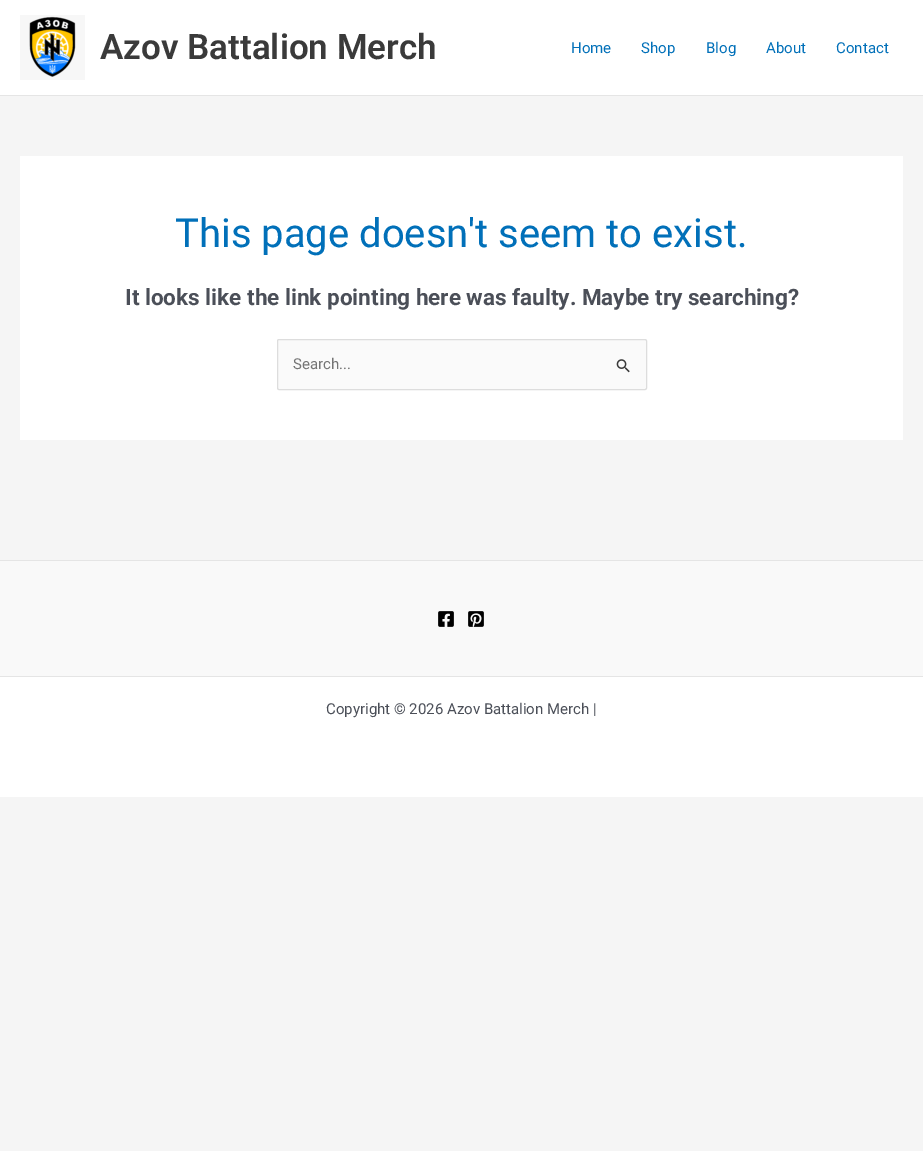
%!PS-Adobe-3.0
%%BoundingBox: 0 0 923 1151
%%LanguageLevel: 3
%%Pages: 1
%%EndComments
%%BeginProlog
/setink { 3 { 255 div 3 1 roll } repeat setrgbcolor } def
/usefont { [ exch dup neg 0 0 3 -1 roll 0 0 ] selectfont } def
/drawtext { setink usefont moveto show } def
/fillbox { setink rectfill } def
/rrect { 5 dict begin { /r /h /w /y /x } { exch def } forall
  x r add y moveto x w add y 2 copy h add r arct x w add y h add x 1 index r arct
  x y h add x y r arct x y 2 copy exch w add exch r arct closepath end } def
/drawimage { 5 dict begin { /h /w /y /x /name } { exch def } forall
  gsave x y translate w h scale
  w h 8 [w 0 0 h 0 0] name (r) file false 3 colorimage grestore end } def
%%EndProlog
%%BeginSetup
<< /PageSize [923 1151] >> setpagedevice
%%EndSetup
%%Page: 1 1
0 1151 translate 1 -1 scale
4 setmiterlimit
0 0 923 1151 245 245 245 fillbox
0 0 923 95 255 255 255 fillbox
0 95 923 1 229 229 229 fillbox
(assets/img1.rgb) 20 15 65 65 drawimage
(Azov Battalion Merch) 100 59 /Roboto-SemiBold 35 58 58 58 drawtext
(Home) 571 53 /Roboto-Regular 15 1 112 185 drawtext
(Shop) 641 53 /Roboto-Regular 15 1 112 185 drawtext
(Blog) 706 53 /Roboto-Regular 15 1 112 185 drawtext
(About) 766 53 /Roboto-Regular 15 1 112 185 drawtext
(Contact) 836 53 /Roboto-Regular 15 1 112 185 drawtext
20 156 883 284 255 255 255 fillbox
(This page doesn't seem to exist.) 175 247 /Roboto-Regular 40 1 112 185 drawtext
(It looks like the link pointing here was faulty. Maybe try searching?) 125 305 /Roboto-Bold 22.5 75 79 88 drawtext
250 250 250 setink
277.5 339.5 369 50 1.5 rrect gsave fill grestore
221 221 221 setink
stroke
(Search...) 293 369 /Roboto-Regular 15 117 117 117 drawtext
(assets/img2.rgb) 616 359 14 14 drawimage
0 561 923 115 249 249 249 fillbox
0 560 923 1 229 229 229 fillbox
(assets/img3.rgb) 438 611 16 16 drawimage
(assets/img4.rgb) 468 611 16 16 drawimage
0 677 923 120 255 255 255 fillbox
0 676 923 1 229 229 229 fillbox
(Copyright © 2026 Azov Battalion Merch |) 326 714 /Roboto-Regular 15 75 79 88 drawtext
showpage
%%EOF
